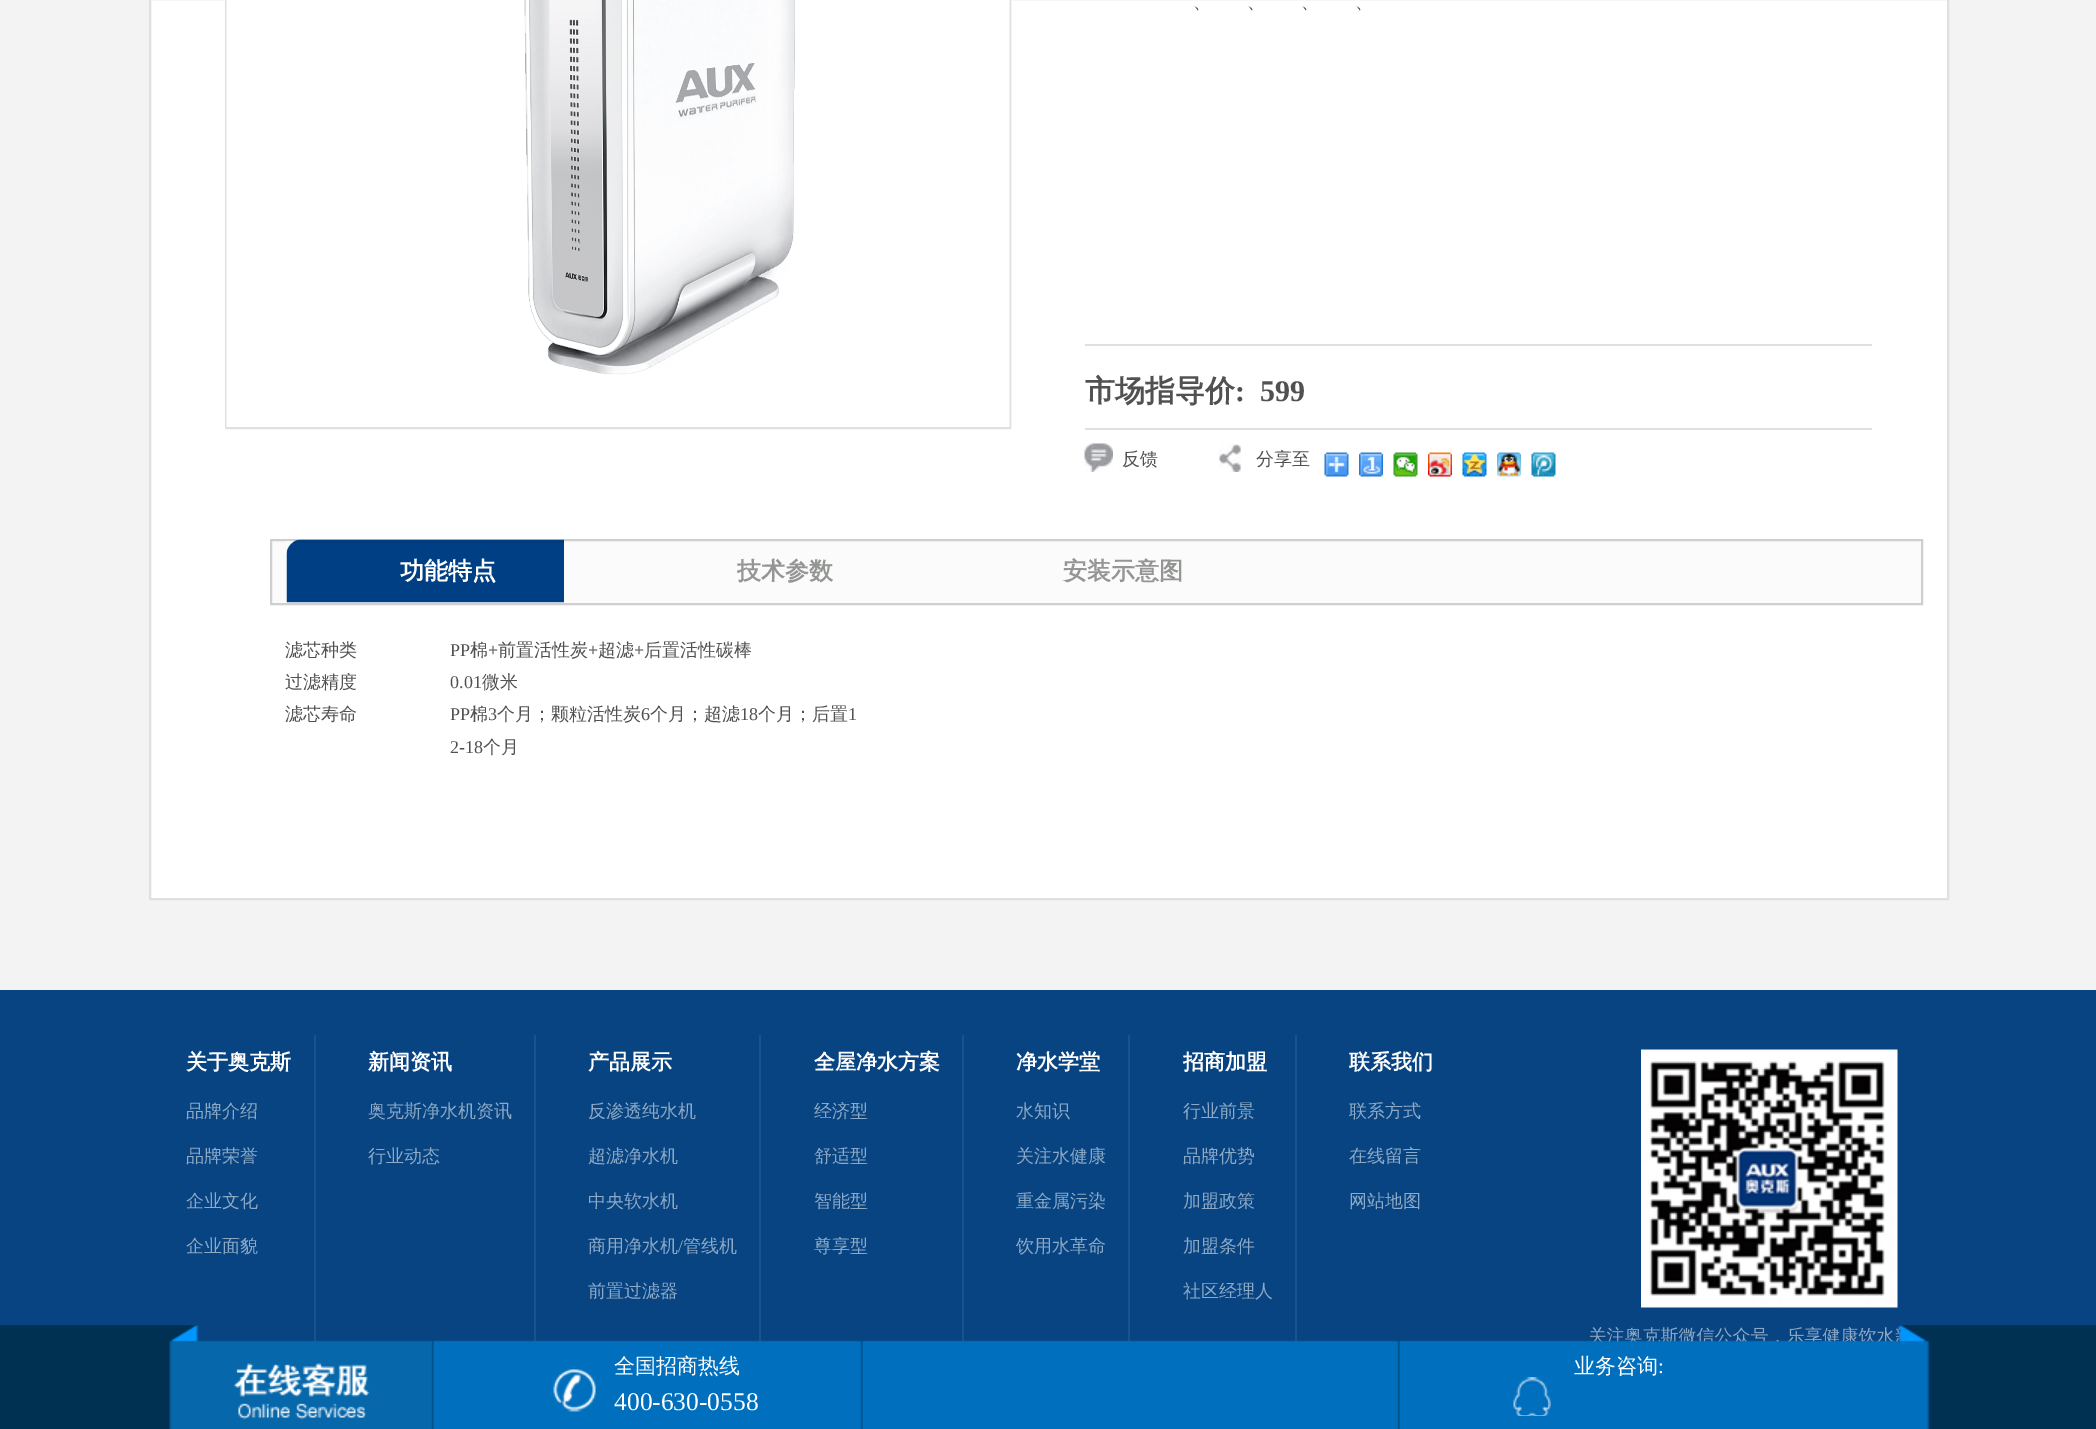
%!PS-Adobe-3.0
%%BoundingBox: 0 0 2096 1429
%%LanguageLevel: 3
%%Pages: 1
%%EndComments
%%BeginProlog
/setink { 3 { 255 div 3 1 roll } repeat setrgbcolor } def
/usefont { [ exch dup neg 0 0 3 -1 roll 0 0 ] selectfont } def
/drawtext { setink usefont moveto show } def
/fillbox { setink rectfill } def
/drawimage { 5 dict begin { /h /w /y /x /name } { exch def } forall
  gsave x y translate w h scale
  w h 8 [w 0 0 h 0 0] name (r) file false 3 colorimage grestore end } def
%%EndProlog
%%BeginSetup
<< /PageSize [2096 1429] >> setpagedevice
%%EndSetup
%%Page: 1 1
0 1429 translate 1 -1 scale
4 setmiterlimit
0 0 2096 1429 243 243 243 fillbox
255 255 255 setink
150 -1 moveto 1948 -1 lineto 1948 899 lineto 150 899 lineto closepath gsave fill grestore
224 224 224 setink
2 setlinewidth
stroke
226 -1 784 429 rectstroke
(assets/img1.rgb) 226 0 784 427 drawimage
1085 344 787 2 224 224 224 fillbox
(、) 1193 8 /WenQuanYiZenHei-Medium 18 81 81 81 drawtext
(、) 1247 8 /WenQuanYiZenHei-Medium 18 81 81 81 drawtext
(、) 1301 8 /WenQuanYiZenHei-Medium 18 81 81 81 drawtext
(、) 1355 8 /WenQuanYiZenHei-Medium 18 81 81 81 drawtext
1085 428 787 2 224 224 224 fillbox
(市场指导价) 1085 401 /WenQuanYiZenHei-Bold 30 81 81 81 drawtext
(:) 1235 401 /LiberationSerif-Bold 30 81 81 81 drawtext
(599) 1260 401 /LiberationSerif-Bold 30 81 81 81 drawtext
(assets/img2.rgb) 1084 443 29 29 drawimage
(反馈) 1122 465 /WenQuanYiZenHei-Medium 18 81 81 81 drawtext
(assets/img3.rgb) 1218 443 23 29 drawimage
(分享至) 1256 465 /WenQuanYiZenHei-Medium 18 81 81 81 drawtext
(assets/img4.rgb) 1324 452 25 25 drawimage
(assets/img5.rgb) 1359 452 24 25 drawimage
(assets/img6.rgb) 1393 452 25 25 drawimage
(assets/img7.rgb) 1428 452 24 25 drawimage
(assets/img8.rgb) 1462 452 25 25 drawimage
(assets/img9.rgb) 1497 452 24 25 drawimage
(assets/img10.rgb) 1531 452 25 25 drawimage
251 251 251 setink
271 540 moveto 1922 540 lineto 1922 604 lineto 271 604 lineto closepath gsave fill grestore
207 207 207 setink
stroke
(assets/img11.rgb) 286 539 278 64 drawimage
(功能特点) 400 579 /WenQuanYiZenHei-Bold 24 255 255 255 drawtext
(技术参数) 737 579 /WenQuanYiZenHei-Bold 24 148 150 148 drawtext
(安装示意图) 1063 579 /WenQuanYiZenHei-Bold 24 148 150 148 drawtext
(滤芯种类) 285 656 /WenQuanYiZenHei-Medium 18 81 81 81 drawtext
(PP) 450 656 /LiberationSerif-Regular 18 81 81 81 drawtext
(棉) 470 656 /WenQuanYiZenHei-Medium 18 81 81 81 drawtext
(+) 488 656 /LiberationSerif-Regular 18 81 81 81 drawtext
(前置活性炭) 498 656 /WenQuanYiZenHei-Medium 18 81 81 81 drawtext
(+) 588 656 /LiberationSerif-Regular 18 81 81 81 drawtext
(超滤) 598 656 /WenQuanYiZenHei-Medium 18 81 81 81 drawtext
(+) 634 656 /LiberationSerif-Regular 18 81 81 81 drawtext
(后置活性碳棒) 644 656 /WenQuanYiZenHei-Medium 18 81 81 81 drawtext
(过滤精度) 285 688 /WenQuanYiZenHei-Medium 18 81 81 81 drawtext
(0.01) 450 688 /LiberationSerif-Regular 18 81 81 81 drawtext
(微米) 482 688 /WenQuanYiZenHei-Medium 18 81 81 81 drawtext
(滤芯寿命) 285 720 /WenQuanYiZenHei-Medium 18 81 81 81 drawtext
(PP) 450 720 /LiberationSerif-Regular 18 81 81 81 drawtext
(棉) 470 720 /WenQuanYiZenHei-Medium 18 81 81 81 drawtext
(3) 488 720 /LiberationSerif-Regular 18 81 81 81 drawtext
(个月；颗粒活性炭) 497 720 /WenQuanYiZenHei-Medium 18 81 81 81 drawtext
(6) 641 720 /LiberationSerif-Regular 18 81 81 81 drawtext
(个月；超滤) 650 720 /WenQuanYiZenHei-Medium 18 81 81 81 drawtext
(18) 740 720 /LiberationSerif-Regular 18 81 81 81 drawtext
(个月；后置) 758 720 /WenQuanYiZenHei-Medium 18 81 81 81 drawtext
(1) 848 720 /LiberationSerif-Regular 18 81 81 81 drawtext
(2-18) 450 753 /LiberationSerif-Regular 18 81 81 81 drawtext
(个月) 483 753 /WenQuanYiZenHei-Medium 18 81 81 81 drawtext
0 990 2096 352 8 68 130 fillbox
314 1035 2 307 25 83 141 fillbox
(关于奥克斯) 186 1069 /WenQuanYiZenHei-Bold 21 255 255 255 drawtext
(品牌介绍) 186 1117 /WenQuanYiZenHei-Medium 18 140 169 198 drawtext
(品牌荣誉) 186 1162 /WenQuanYiZenHei-Medium 18 140 169 198 drawtext
(企业文化) 186 1207 /WenQuanYiZenHei-Medium 18 140 169 198 drawtext
(企业面貌) 186 1252 /WenQuanYiZenHei-Medium 18 140 169 198 drawtext
534 1035 2 307 25 83 141 fillbox
(新闻资讯) 368 1069 /WenQuanYiZenHei-Bold 21 255 255 255 drawtext
(奥克斯净水机资讯) 368 1117 /WenQuanYiZenHei-Medium 18 140 169 198 drawtext
(行业动态) 368 1162 /WenQuanYiZenHei-Medium 18 140 169 198 drawtext
759 1035 2 307 25 83 141 fillbox
(产品展示) 588 1069 /WenQuanYiZenHei-Bold 21 255 255 255 drawtext
(反渗透纯水机) 588 1117 /WenQuanYiZenHei-Medium 18 140 169 198 drawtext
(超滤净水机) 588 1162 /WenQuanYiZenHei-Medium 18 140 169 198 drawtext
(中央软水机) 588 1207 /WenQuanYiZenHei-Medium 18 140 169 198 drawtext
(商用净水机) 588 1252 /WenQuanYiZenHei-Medium 18 140 169 198 drawtext
(/) 678 1252 /LiberationSerif-Regular 18 140 169 198 drawtext
(管线机) 683 1252 /WenQuanYiZenHei-Medium 18 140 169 198 drawtext
(前置过滤器) 588 1297 /WenQuanYiZenHei-Medium 18 140 169 198 drawtext
962 1035 2 307 25 83 141 fillbox
(全屋净水方案) 814 1069 /WenQuanYiZenHei-Bold 21 255 255 255 drawtext
(经济型) 814 1117 /WenQuanYiZenHei-Medium 18 140 169 198 drawtext
(舒适型) 814 1162 /WenQuanYiZenHei-Medium 18 140 169 198 drawtext
(智能型) 814 1207 /WenQuanYiZenHei-Medium 18 140 169 198 drawtext
(尊享型) 814 1252 /WenQuanYiZenHei-Medium 18 140 169 198 drawtext
1128 1035 2 307 25 83 141 fillbox
(净水学堂) 1016 1069 /WenQuanYiZenHei-Bold 21 255 255 255 drawtext
(水知识) 1016 1117 /WenQuanYiZenHei-Medium 18 140 169 198 drawtext
(关注水健康) 1016 1162 /WenQuanYiZenHei-Medium 18 140 169 198 drawtext
(重金属污染) 1016 1207 /WenQuanYiZenHei-Medium 18 140 169 198 drawtext
(饮用水革命) 1016 1252 /WenQuanYiZenHei-Medium 18 140 169 198 drawtext
1295 1035 2 307 25 83 141 fillbox
(招商加盟) 1183 1069 /WenQuanYiZenHei-Bold 21 255 255 255 drawtext
(行业前景) 1183 1117 /WenQuanYiZenHei-Medium 18 140 169 198 drawtext
(品牌优势) 1183 1162 /WenQuanYiZenHei-Medium 18 140 169 198 drawtext
(加盟政策) 1183 1207 /WenQuanYiZenHei-Medium 18 140 169 198 drawtext
(加盟条件) 1183 1252 /WenQuanYiZenHei-Medium 18 140 169 198 drawtext
(社区经理人) 1183 1297 /WenQuanYiZenHei-Medium 18 140 169 198 drawtext
(联系我们) 1349 1069 /WenQuanYiZenHei-Bold 21 255 255 255 drawtext
(联系方式) 1349 1117 /WenQuanYiZenHei-Medium 18 140 169 198 drawtext
(在线留言) 1349 1162 /WenQuanYiZenHei-Medium 18 140 169 198 drawtext
(网站地图) 1349 1207 /WenQuanYiZenHei-Medium 18 140 169 198 drawtext
(assets/img12.rgb) 1641 1049 257 259 drawimage
(关注奥克斯微信公众号，乐享健康饮水新) 1589 1342 /WenQuanYiZenHei-Medium 18 140 169 198 drawtext
(assets/img13.rgb) 0 1325 2096 104 drawimage
(assets/img14.rgb) 553 1369 43 43 drawimage
(全国招商热线) 614 1373 /WenQuanYiZenHei-Medium 21 255 255 255 drawtext
(400-630-0558) 614 1410 /LiberationSerif-Regular 25.5 255 255 255 drawtext
(assets/img15.rgb) 1513 1377 38 39 drawimage
(业务咨询) 1574 1373 /WenQuanYiZenHei-Medium 21 255 255 255 drawtext
(:) 1658 1373 /LiberationSerif-Regular 21 255 255 255 drawtext
showpage
%%EOF
